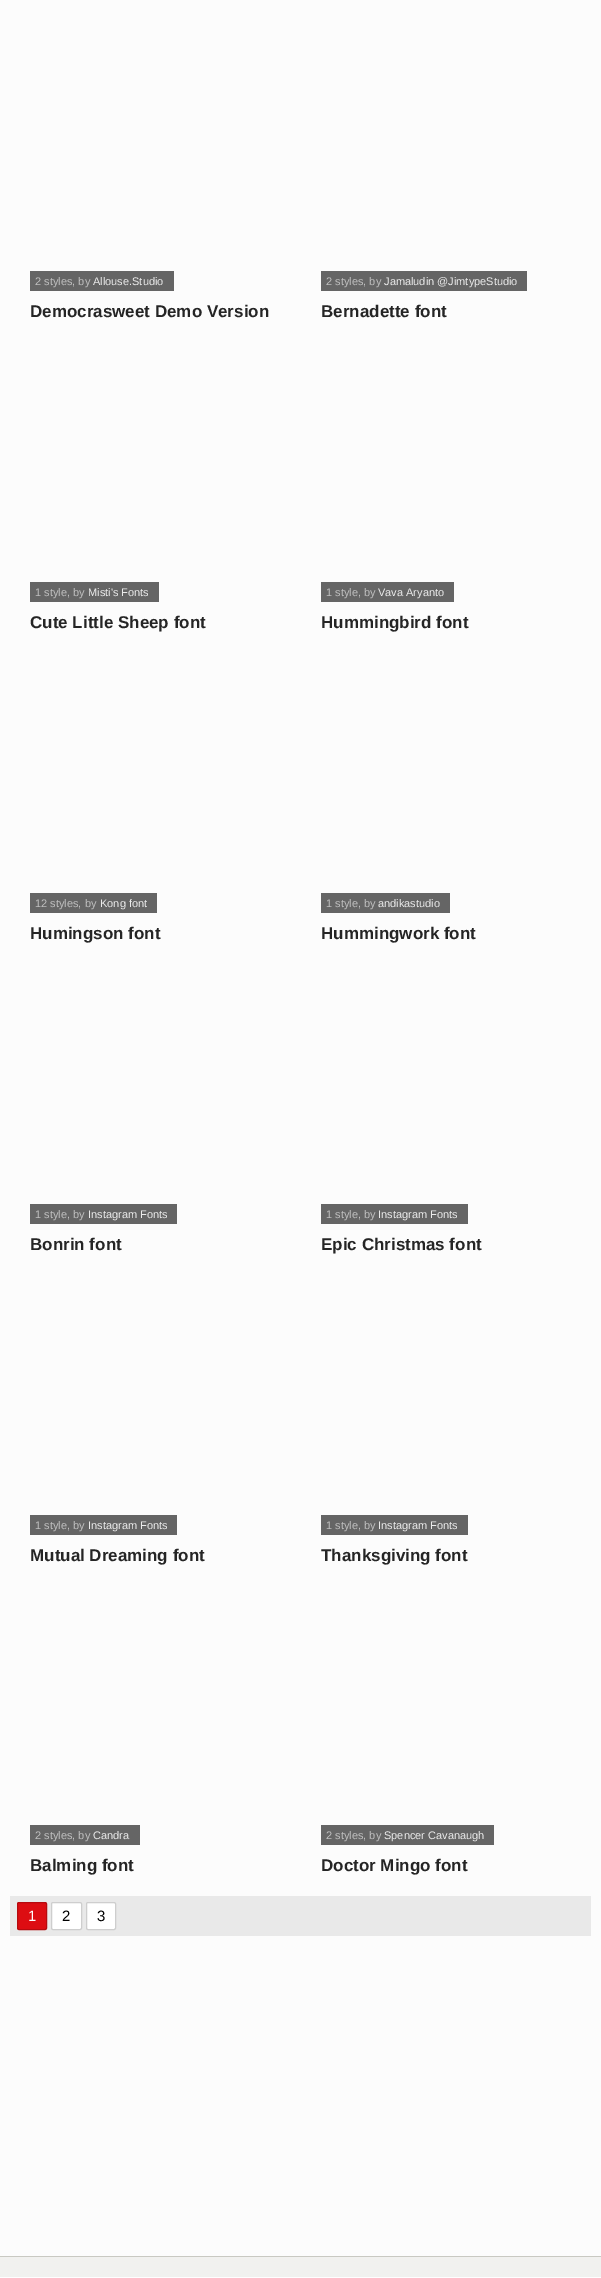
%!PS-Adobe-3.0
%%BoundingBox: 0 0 601 2278
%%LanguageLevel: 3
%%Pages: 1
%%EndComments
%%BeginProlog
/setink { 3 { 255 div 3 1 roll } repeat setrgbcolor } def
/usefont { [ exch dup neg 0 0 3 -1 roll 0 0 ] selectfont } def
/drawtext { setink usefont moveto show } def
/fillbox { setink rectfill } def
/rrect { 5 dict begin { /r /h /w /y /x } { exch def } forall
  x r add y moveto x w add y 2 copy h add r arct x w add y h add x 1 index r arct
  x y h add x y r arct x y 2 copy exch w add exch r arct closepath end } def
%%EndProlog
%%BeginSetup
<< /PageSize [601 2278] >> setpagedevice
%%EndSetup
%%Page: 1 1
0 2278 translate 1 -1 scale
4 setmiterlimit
0 0 601 2278 255 255 255 fillbox
0 0 601 2256 252 252 252 fillbox
30 271 144 20 101 101 101 fillbox
(2 styles, by) 35 285 /LiberationSans-Regular 11 192 192 192 drawtext
(Allouse.Studio) 93 285 /LiberationSans-Regular 11 235 235 235 drawtext
(Democrasweet Demo Version) 30 317 /LiberationSans-Bold 17 37 37 37 drawtext
321 271 206 20 101 101 101 fillbox
(2 styles, by) 326 285 /LiberationSans-Regular 11 192 192 192 drawtext
(Jamaludin @JimtypeStudio) 384 285 /LiberationSans-Regular 11 235 235 235 drawtext
(Bernadette font) 321 317 /LiberationSans-Bold 17 37 37 37 drawtext
30 582 129 20 101 101 101 fillbox
(1 style, by) 35 596 /LiberationSans-Regular 11 192 192 192 drawtext
(Misti's Fonts) 88 596 /LiberationSans-Regular 11 235 235 235 drawtext
(Cute Little Sheep font) 30 628 /LiberationSans-Bold 17 37 37 37 drawtext
321 582 133 20 101 101 101 fillbox
(1 style, by) 326 596 /LiberationSans-Regular 11 192 192 192 drawtext
(Vava Aryanto) 378 596 /LiberationSans-Regular 11 235 235 235 drawtext
(Hummingbird font) 321 628 /LiberationSans-Bold 17 37 37 37 drawtext
30 893 127 20 101 101 101 fillbox
(12 styles, by) 35 907 /LiberationSans-Regular 11 192 192 192 drawtext
(Kong font) 100 907 /LiberationSans-Regular 11 235 235 235 drawtext
(Humingson font) 30 939 /LiberationSans-Bold 17 37 37 37 drawtext
321 893 129 20 101 101 101 fillbox
(1 style, by) 326 907 /LiberationSans-Regular 11 192 192 192 drawtext
(andikastudio) 378 907 /LiberationSans-Regular 11 235 235 235 drawtext
(Hummingwork font) 321 939 /LiberationSans-Bold 17 37 37 37 drawtext
30 1204 147 20 101 101 101 fillbox
(1 style, by) 35 1218 /LiberationSans-Regular 11 192 192 192 drawtext
(Instagram Fonts) 88 1218 /LiberationSans-Regular 11 235 235 235 drawtext
(Bonrin font) 30 1250 /LiberationSans-Bold 17 37 37 37 drawtext
321 1204 147 20 101 101 101 fillbox
(1 style, by) 326 1218 /LiberationSans-Regular 11 192 192 192 drawtext
(Instagram Fonts) 378 1218 /LiberationSans-Regular 11 235 235 235 drawtext
(Epic Christmas font) 321 1250 /LiberationSans-Bold 17 37 37 37 drawtext
30 1515 147 20 101 101 101 fillbox
(1 style, by) 35 1529 /LiberationSans-Regular 11 192 192 192 drawtext
(Instagram Fonts) 88 1529 /LiberationSans-Regular 11 235 235 235 drawtext
(Mutual Dreaming font) 30 1561 /LiberationSans-Bold 17 37 37 37 drawtext
321 1515 147 20 101 101 101 fillbox
(1 style, by) 326 1529 /LiberationSans-Regular 11 192 192 192 drawtext
(Instagram Fonts) 378 1529 /LiberationSans-Regular 11 235 235 235 drawtext
(Thanksgiving font) 321 1561 /LiberationSans-Bold 17 37 37 37 drawtext
30 1825 110 20 101 101 101 fillbox
(2 styles, by) 35 1839 /LiberationSans-Regular 11 192 192 192 drawtext
(Candra) 93 1839 /LiberationSans-Regular 11 235 235 235 drawtext
(Balming font) 30 1871 /LiberationSans-Bold 17 37 37 37 drawtext
321 1825 173 20 101 101 101 fillbox
(2 styles, by) 326 1839 /LiberationSans-Regular 11 192 192 192 drawtext
(Spencer Cavanaugh) 384 1839 /LiberationSans-Regular 11 235 235 235 drawtext
(Doctor Mingo font) 321 1871 /LiberationSans-Bold 17 37 37 37 drawtext
10 1896 581 40 233 233 233 fillbox
221 13 18 setink
17.5 1902.5 29 27 1.5 rrect gsave fill grestore
182 11 15 setink
stroke
(1) 28 1921 /LiberationSans-Regular 15 255 255 255 drawtext
51.5 1902.5 30 27 1.5 rrect gsave fill grestore
206 206 206 setink
stroke
(2) 62 1921 /LiberationSans-Regular 15 0 0 0 drawtext
255 255 255 setink
86.5 1902.5 29 27 1.5 rrect gsave fill grestore
206 206 206 setink
stroke
(3) 97 1921 /LiberationSans-Regular 15 0 0 0 drawtext
0 2257 601 20 241 241 239 fillbox
0 2256 601 1 201 201 194 fillbox
showpage
%%EOF
